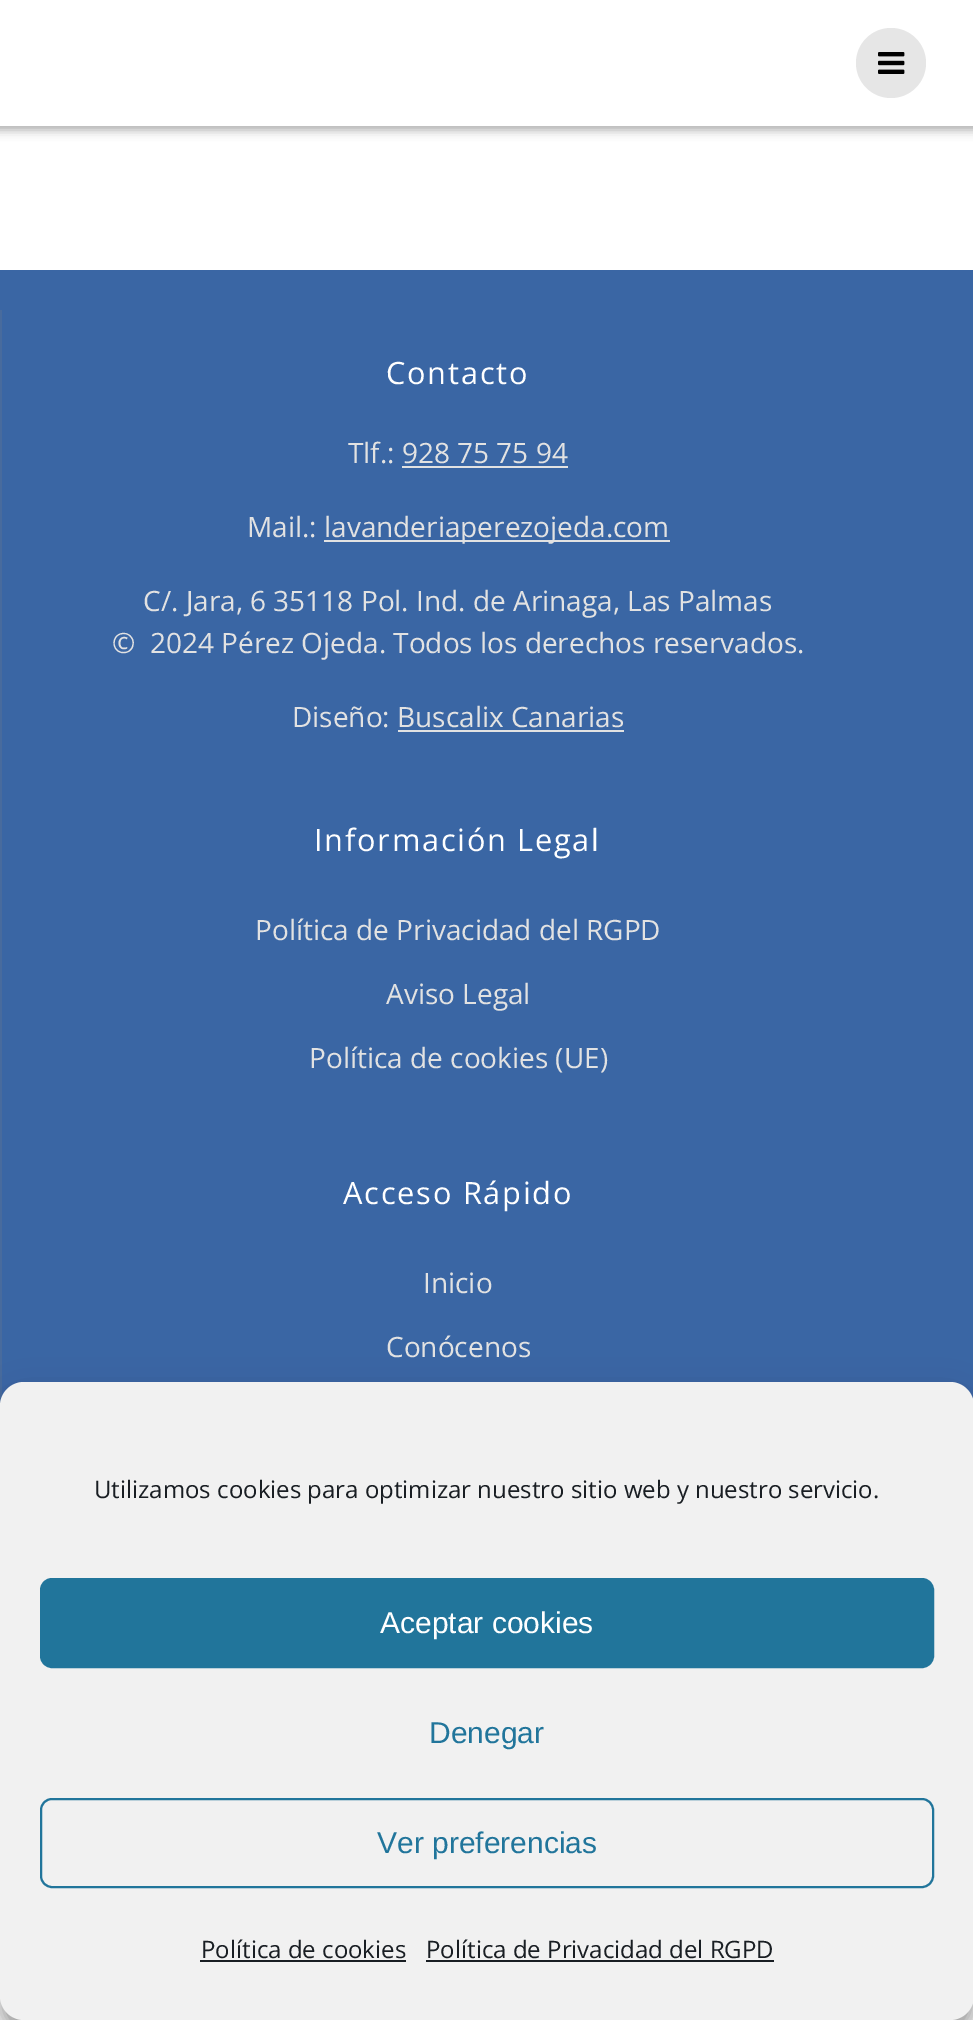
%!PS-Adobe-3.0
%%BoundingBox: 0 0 973 2020
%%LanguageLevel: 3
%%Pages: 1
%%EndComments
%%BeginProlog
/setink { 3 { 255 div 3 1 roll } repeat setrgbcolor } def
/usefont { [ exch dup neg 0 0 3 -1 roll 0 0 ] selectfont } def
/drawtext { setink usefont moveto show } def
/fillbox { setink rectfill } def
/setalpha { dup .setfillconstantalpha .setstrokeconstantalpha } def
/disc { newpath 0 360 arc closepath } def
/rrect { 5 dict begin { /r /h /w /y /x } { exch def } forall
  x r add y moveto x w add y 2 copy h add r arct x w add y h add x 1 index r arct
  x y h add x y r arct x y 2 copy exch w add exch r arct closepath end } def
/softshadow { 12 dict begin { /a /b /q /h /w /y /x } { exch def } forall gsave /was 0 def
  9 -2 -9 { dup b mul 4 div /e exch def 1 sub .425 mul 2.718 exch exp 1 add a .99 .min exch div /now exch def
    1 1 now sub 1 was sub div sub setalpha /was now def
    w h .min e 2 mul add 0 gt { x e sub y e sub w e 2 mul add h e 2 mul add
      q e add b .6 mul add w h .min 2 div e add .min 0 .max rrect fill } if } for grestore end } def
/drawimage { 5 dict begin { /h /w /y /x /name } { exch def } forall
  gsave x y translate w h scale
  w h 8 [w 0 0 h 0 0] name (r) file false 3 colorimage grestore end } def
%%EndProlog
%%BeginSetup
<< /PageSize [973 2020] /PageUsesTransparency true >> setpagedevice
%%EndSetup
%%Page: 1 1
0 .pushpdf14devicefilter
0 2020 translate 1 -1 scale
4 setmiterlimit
0 0 973 2020 255 255 255 fillbox
0 0 0 setink
-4 -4 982 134 0 5 0.33 softshadow
0 0 973 126 255 255 255 fillbox
230 230 230 setink
891 63 35 disc fill
(assets/img1.rgb) 878 52 27 22 drawimage
0 270 973 1129 58 102 164 fillbox
0 310 2 1096 72 107 157 fillbox
/OpenSans-Regular 30.75 usefont
255 255 255 setink
386 384 moveto 1.75 0 (Contacto) ashow
(Tlf.: 928 75 75 94) 348 463 /OpenSans-Regular 28 226 226 226 drawtext
402 466 166 2 226 226 226 fillbox
(Mail.:) 247 537 /OpenSans-Regular 28 226 226 226 drawtext
324 540 346 2 226 226 226 fillbox
(lavanderiaperezojeda.com) 324 537 /OpenSans-Regular 28 226 226 226 drawtext
(C/. Jara, 6 35118 Pol. Ind. de Arinaga, Las Palmas) 143 611 /OpenSans-Regular 28 226 226 226 drawtext
(©  2024 Pérez Ojeda. Todos los derechos reservados.) 112 653 /OpenSans-Regular 28 226 226 226 drawtext
(Diseño: Buscalix Canarias) 292 727 /OpenSans-Regular 28 226 226 226 drawtext
398 730 226 2 226 226 226 fillbox
/OpenSans-Regular 30.75 usefont
255 255 255 setink
314 851 moveto 1.75 0 (Información Legal) ashow
(Política de Privacidad del RGPD) 255 940 /OpenSans-Regular 28 226 226 226 drawtext
(Aviso Legal) 386 1004 /OpenSans-Regular 28 226 226 226 drawtext
(Política de cookies \(UE\)) 309 1068 /OpenSans-Regular 28 226 226 226 drawtext
/OpenSans-Regular 30.75 usefont
255 255 255 setink
343 1204 moveto 1.75 0 (Acceso Rápido) ashow
(Inicio) 423 1293 /OpenSans-Regular 28 226 226 226 drawtext
(Conócenos) 386 1357 /OpenSans-Regular 28 226 226 226 drawtext
0 0 0 setink
0 1394 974 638 24 6 0.23 softshadow
0 1402 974 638 24 20 0.19 softshadow
241 241 241 setink
0 1382 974 638 24 rrect fill
(Utilizamos cookies para optimizar nuestro sitio web y nuestro servicio.) 94 1498 /OpenSans-Regular 24 25 30 35 drawtext
33 117 155 setink
41 1579 892 88 11 rrect gsave fill grestore
2 setlinewidth
stroke
(Aceptar cookies) 380 1633 /LiberationSans-Regular 30 255 255 255 drawtext
(Denegar) 429 1743 /LiberationSans-Regular 30 33 117 155 drawtext
41 1799 892 88 11 rrect stroke
(Ver preferencias) 377 1853 /LiberationSans-Regular 30 33 117 155 drawtext
(Política de cookies) 201 1958 /OpenSans-Regular 24 25 30 35 drawtext
200 1960 206 2 25 30 35 fillbox
(Política de Privacidad del RGPD) 426 1958 /OpenSans-Regular 24 25 30 35 drawtext
426 1960 348 2 25 30 35 fillbox
.poppdf14devicefilter showpage
%%EOF
